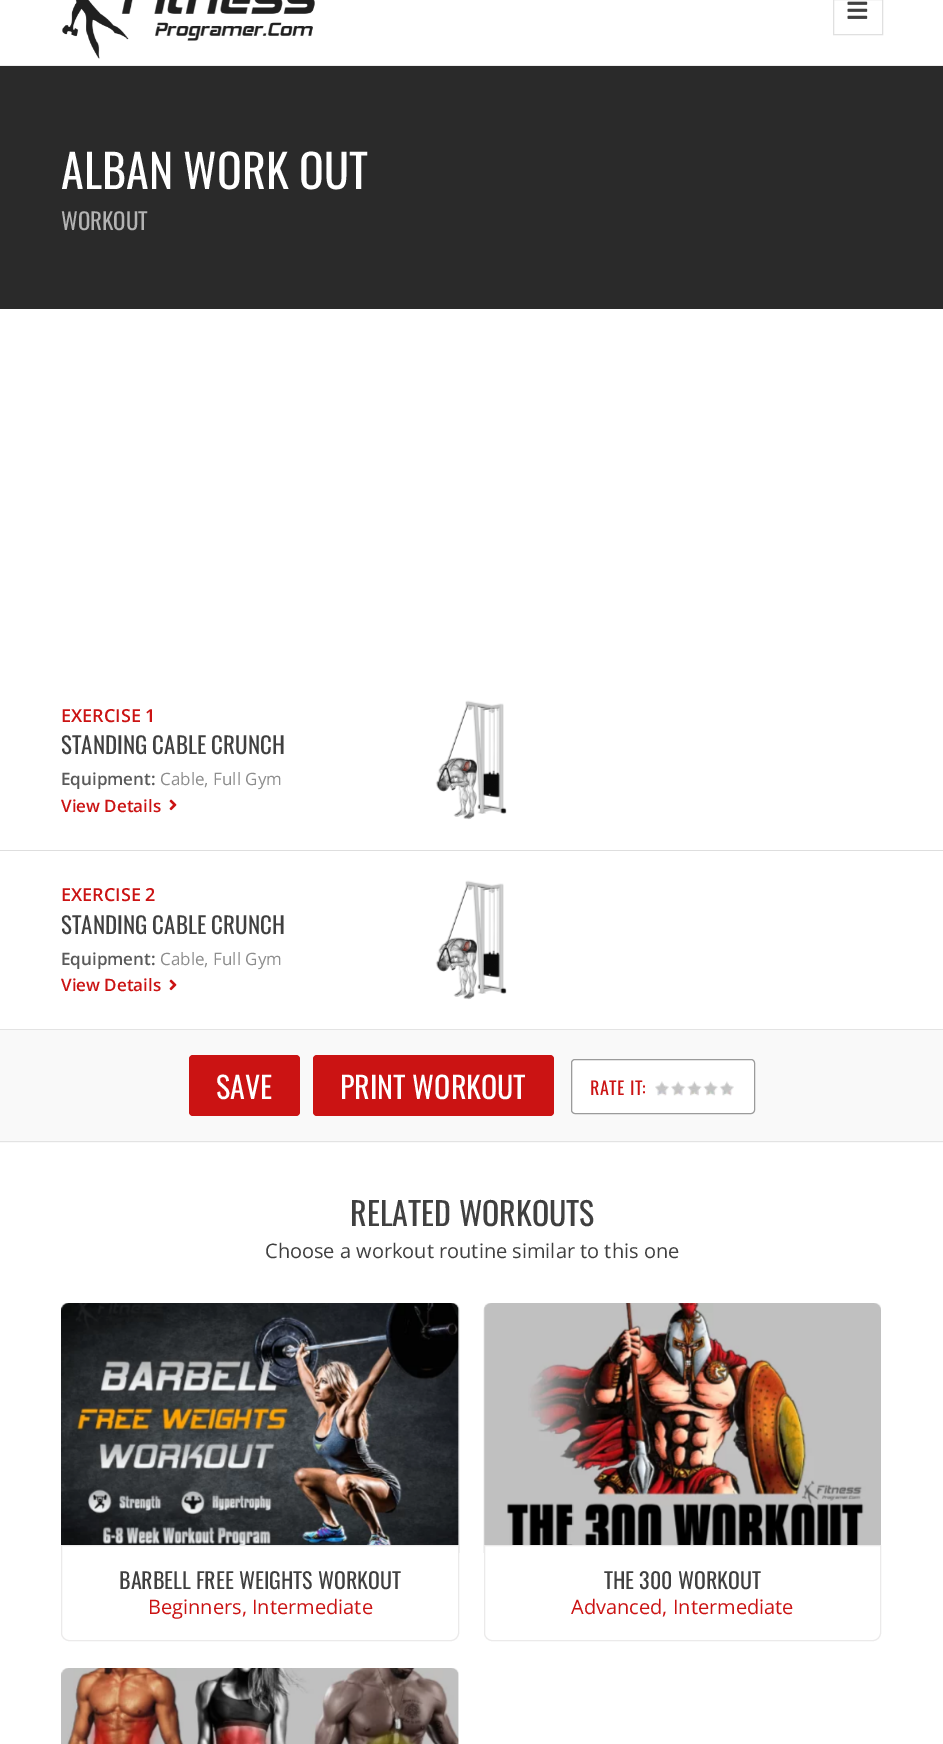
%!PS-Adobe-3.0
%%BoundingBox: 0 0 943 1744
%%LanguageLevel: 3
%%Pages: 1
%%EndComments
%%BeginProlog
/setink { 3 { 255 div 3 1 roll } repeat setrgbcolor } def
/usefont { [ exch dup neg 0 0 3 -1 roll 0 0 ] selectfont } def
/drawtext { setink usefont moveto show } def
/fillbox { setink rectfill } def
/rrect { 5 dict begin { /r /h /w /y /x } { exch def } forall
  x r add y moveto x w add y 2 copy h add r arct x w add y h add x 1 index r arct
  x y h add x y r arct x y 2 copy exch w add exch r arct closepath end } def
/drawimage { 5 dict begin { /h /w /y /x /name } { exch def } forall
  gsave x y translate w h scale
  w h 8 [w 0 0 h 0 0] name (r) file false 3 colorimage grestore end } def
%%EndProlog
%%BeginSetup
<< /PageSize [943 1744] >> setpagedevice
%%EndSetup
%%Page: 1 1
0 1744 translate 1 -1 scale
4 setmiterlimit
0 0 943 1744 255 255 255 fillbox
0 65 943 1 238 238 238 fillbox
(assets/img1.rgb) 62 0 253 59 drawimage
224 224 224 setink
833.5 -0.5 49 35 rectstroke
(assets/img2.rgb) 847 1 21 18 drawimage
0 66 943 243 42 42 42 fillbox
(ALBAN WORK OUT) 61 189 /Oswald-Regular 46 255 255 255 drawtext
(WORKOUT) 61 230 /Oswald-Regular 23 179 179 179 drawtext
0 850 943 1 222 222 222 fillbox
(EXERCISE 1) 61 722 /OpenSans-SemiBold 18 203 19 19 drawtext
(STANDING CABLE CRUNCH) 61 754 /Oswald-Regular 23 64 64 64 drawtext
(Equipment:) 61 785 /OpenSans-SemiBold 17 90 90 90 drawtext
(Cable, Full Gym) 160 785 /OpenSans-Regular 17 141 141 141 drawtext
(View Details) 61 812 /OpenSans-SemiBold 17 203 19 19 drawtext
(assets/img3.rgb) 169 799 8 12 drawimage
(assets/img4.rgb) 435 700 72 120 drawimage
(EXERCISE 2) 61 901 /OpenSans-SemiBold 18 203 19 19 drawtext
(STANDING CABLE CRUNCH) 61 934 /Oswald-Regular 23 64 64 64 drawtext
(Equipment:) 61 965 /OpenSans-SemiBold 17 90 90 90 drawtext
(Cable, Full Gym) 160 965 /OpenSans-Regular 17 141 141 141 drawtext
(View Details) 61 991 /OpenSans-SemiBold 17 203 19 19 drawtext
(assets/img3.rgb) 169 979 8 12 drawimage
(assets/img5.rgb) 435 880 72 120 drawimage
0 1030 943 113 249 249 249 fillbox
0 1029 943 1 227 227 227 fillbox
0 1141 943 1 227 227 227 fillbox
203 19 19 setink
189 1055 111 61 4 rrect fill
(SAVE) 216 1099 /Oswald-Regular 30 255 255 255 drawtext
203 19 19 setink
313 1055 241 61 4 rrect fill
(PRINT WORKOUT) 340 1099 /Oswald-Regular 30 255 255 255 drawtext
573 1060 181 53 2.5 rrect fill
155 155 155 setink
571.5 1059.5 183 54 3.5 rrect stroke
/Oswald-Regular 18 usefont
203 19 19 setink
590 1095 moveto 0.5 0 (RATE IT:) ashow
(assets/img6.rgb) 655 1081 79 15 drawimage
(RELATED WORKOUTS) 350 1226 /Oswald-Regular 32 64 64 64 drawtext
(Choose a workout routine similar to this one) 265 1258 /OpenSans-Regular 20 64 64 64 drawtext
(assets/img7.rgb) 61 1303 399 250 drawimage
255 255 255 setink
61.5 1545.5 moveto 458.5 1545.5 lineto 458.5 1633 lineto 458.5 1637 455 1640.5 451 1640.5 curveto 69 1640.5 lineto 65 1640.5 61.5 1637 61.5 1633 curveto closepath gsave fill grestore
235 234 234 setink
stroke
(BARBELL FREE WEIGHTS WORKOUT) 119 1589 /Oswald-Regular 22 64 64 64 drawtext
(Beginners, Intermediate) 148 1614 /OpenSans-Regular 20 203 19 19 drawtext
(assets/img8.rgb) 483 1303 398 250 drawimage
255 255 255 setink
484.5 1545.5 moveto 880.5 1545.5 lineto 880.5 1633 lineto 880.5 1637 877 1640.5 873 1640.5 curveto 492 1640.5 lineto 488 1640.5 484.5 1637 484.5 1633 curveto closepath gsave fill grestore
235 234 234 setink
stroke
(THE 300 WORKOUT) 604 1589 /Oswald-Regular 22 64 64 64 drawtext
(Advanced, Intermediate) 571 1614 /OpenSans-Regular 20 203 19 19 drawtext
(assets/img9.rgb) 61 1668 398 76 drawimage
showpage
%%EOF
